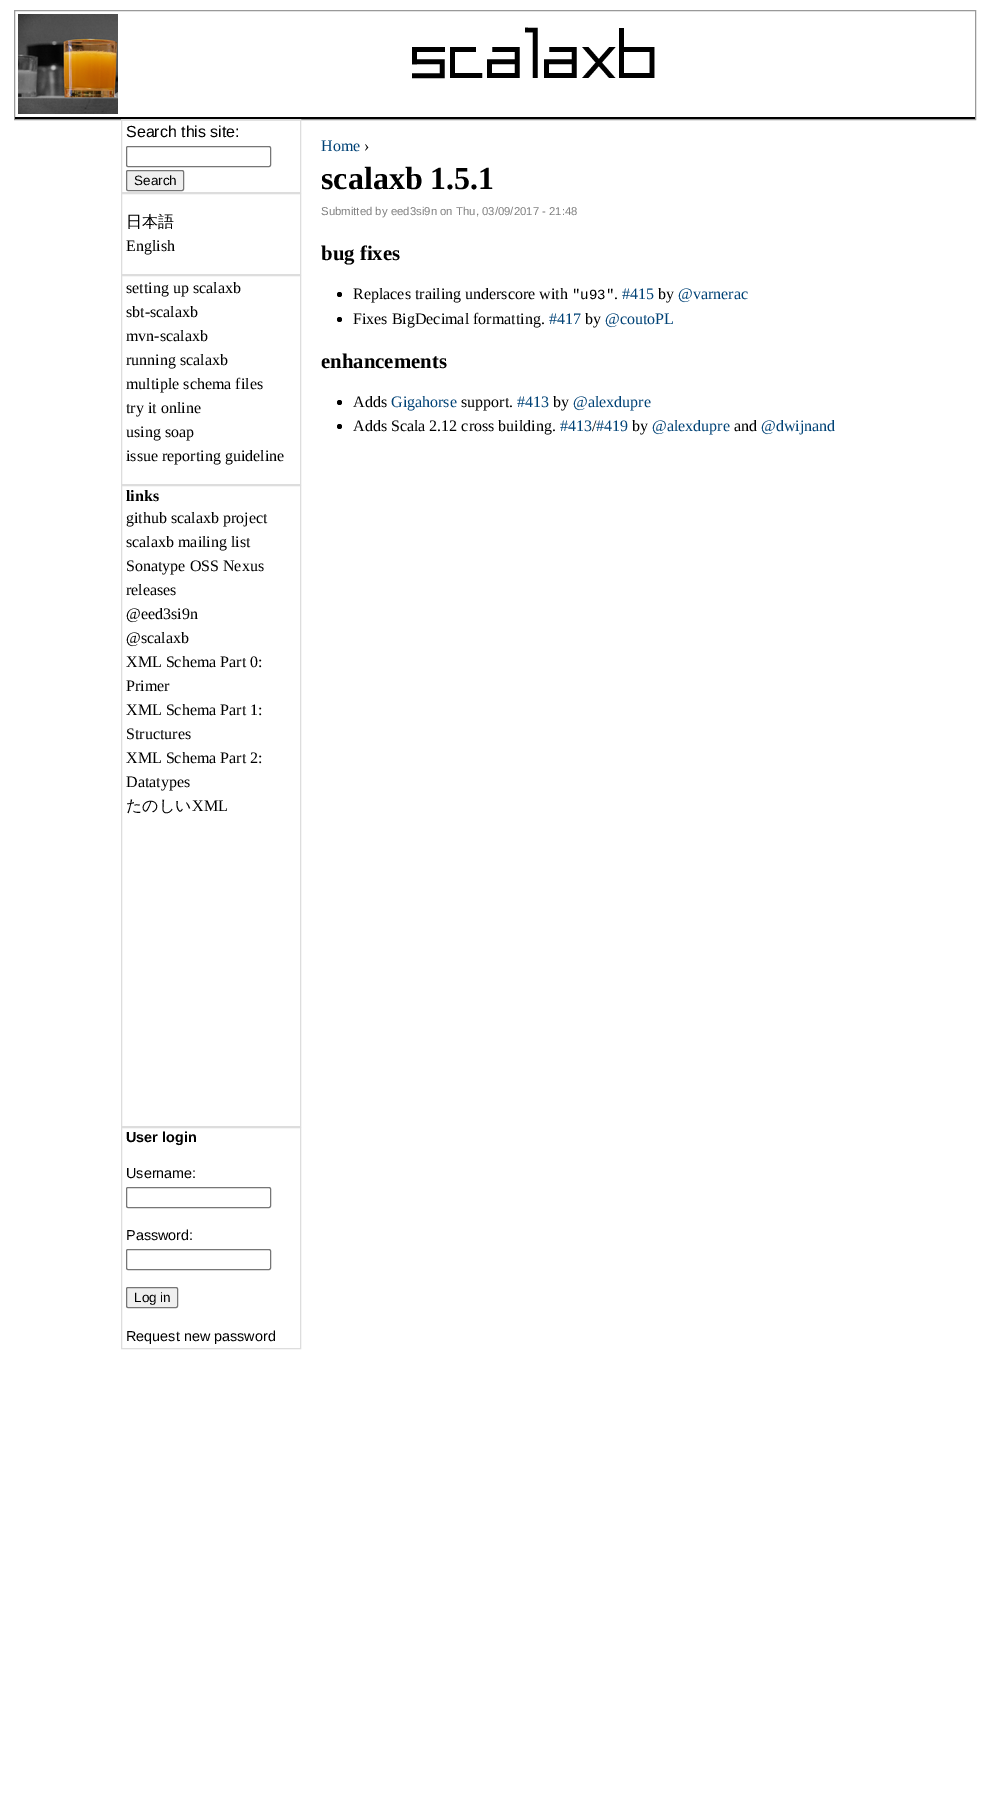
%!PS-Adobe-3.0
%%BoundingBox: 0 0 990 1801
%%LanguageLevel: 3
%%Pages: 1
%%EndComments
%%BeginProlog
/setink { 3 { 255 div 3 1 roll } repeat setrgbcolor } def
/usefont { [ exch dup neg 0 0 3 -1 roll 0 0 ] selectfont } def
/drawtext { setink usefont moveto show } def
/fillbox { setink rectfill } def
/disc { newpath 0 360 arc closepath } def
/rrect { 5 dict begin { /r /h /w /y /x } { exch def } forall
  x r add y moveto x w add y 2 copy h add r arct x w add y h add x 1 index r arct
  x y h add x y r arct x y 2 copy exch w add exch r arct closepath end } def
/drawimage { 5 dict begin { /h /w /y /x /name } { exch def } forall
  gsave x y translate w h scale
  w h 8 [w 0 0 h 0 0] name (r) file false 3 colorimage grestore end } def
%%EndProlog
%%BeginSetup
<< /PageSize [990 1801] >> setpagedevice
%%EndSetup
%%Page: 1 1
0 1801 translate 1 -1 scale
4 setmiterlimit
0 0 990 1801 255 255 255 fillbox
153 153 153 setink
14.5 10.5 961 109 rectstroke
15 117 960 2 0 0 0 fillbox
(assets/img1.rgb) 18 14 100 100 drawimage
(assets/img2.rgb) 412 27 243 52 drawimage
221 221 221 setink
121.5 119.5 179 73 rectstroke
(Search this site:) 126 137 /LiberationSans-Regular 16 0 0 0 drawtext
118 118 118 setink
126.5 146.5 144 20 1.5 rrect stroke
239 239 239 setink
126.5 170.5 57 20 1.5 rrect gsave fill grestore
118 118 118 setink
stroke
(Search) 134 185 /LiberationSans-Regular 13.5 0 0 0 drawtext
221 221 221 setink
121.5 193.5 179 81 rectstroke
(日本語) 126 227 /WenQuanYiZenHei-Medium 16 0 0 0 drawtext
(English) 126 251 /LiberationSerif-Regular 16 0 0 0 drawtext
221 221 221 setink
121.5 275.5 179 209 rectstroke
(setting up scalaxb) 126 293 /LiberationSerif-Regular 16 0 0 0 drawtext
(sbt-scalaxb) 126 317 /LiberationSerif-Regular 16 0 0 0 drawtext
(mvn-scalaxb) 126 341 /LiberationSerif-Regular 16 0 0 0 drawtext
(running scalaxb) 126 365 /LiberationSerif-Regular 16 0 0 0 drawtext
(multiple schema files) 126 389 /LiberationSerif-Regular 16 0 0 0 drawtext
(try it online) 126 413 /LiberationSerif-Regular 16 0 0 0 drawtext
(using soap) 126 437 /LiberationSerif-Regular 16 0 0 0 drawtext
(issue reporting guideline) 126 461 /LiberationSerif-Regular 16 0 0 0 drawtext
221 221 221 setink
121.5 485.5 179 641 rectstroke
(links) 126 501 /LiberationSerif-Bold 16 0 0 0 drawtext
(github scalaxb project) 126 523 /LiberationSerif-Regular 16 0 0 0 drawtext
(scalaxb mailing list) 126 547 /LiberationSerif-Regular 16 0 0 0 drawtext
(Sonatype OSS Nexus) 126 571 /LiberationSerif-Regular 16 0 0 0 drawtext
(releases) 126 595 /LiberationSerif-Regular 16 0 0 0 drawtext
(@eed3si9n) 126 619 /LiberationSerif-Regular 16 0 0 0 drawtext
(@scalaxb) 126 643 /LiberationSerif-Regular 16 0 0 0 drawtext
(XML Schema Part 0:) 126 667 /LiberationSerif-Regular 16 0 0 0 drawtext
(Primer) 126 691 /LiberationSerif-Regular 16 0 0 0 drawtext
(XML Schema Part 1:) 126 715 /LiberationSerif-Regular 16 0 0 0 drawtext
(Structures) 126 739 /LiberationSerif-Regular 16 0 0 0 drawtext
(XML Schema Part 2:) 126 763 /LiberationSerif-Regular 16 0 0 0 drawtext
(Datatypes) 126 787 /LiberationSerif-Regular 16 0 0 0 drawtext
(たのしい) 126 811 /WenQuanYiZenHei-Medium 16 0 0 0 drawtext
(XML) 192 811 /LiberationSerif-Regular 16 0 0 0 drawtext
221 221 221 setink
121.5 1127.5 179 221 rectstroke
(User login) 126 1142 /LiberationSans-Bold 14.4 0 0 0 drawtext
(Username:) 126 1178 /LiberationSans-Regular 14.4 0 0 0 drawtext
118 118 118 setink
126.5 1187.5 144 20 1.5 rrect stroke
(Password:) 126 1240 /LiberationSans-Regular 14.4 0 0 0 drawtext
118 118 118 setink
126.5 1249.5 144 20 1.5 rrect stroke
239 239 239 setink
126.5 1287.5 51 20 1.5 rrect gsave fill grestore
118 118 118 setink
stroke
(Log in) 134 1302 /LiberationSans-Regular 13.5 0 0 0 drawtext
(Request new password) 126 1341 /LiberationSans-Regular 14.4 0 0 0 drawtext
(Home) 321 151 /LiberationSerif-Regular 16 0 66 118 drawtext
(›) 364 151 /LiberationSerif-Regular 16 0 0 0 drawtext
(scalaxb 1.5.1) 321 189 /LiberationSerif-Bold 32 0 0 0 drawtext
(Submitted by eed3si9n on Thu, 03/09/2017 - 21:48) 321 215 /LiberationSans-Regular 11.4 128 128 128 drawtext
(bug fixes) 321 260 /LiberationSerif-Bold 20.75 0 0 0 drawtext
339.5 294.5 2.5 disc fill
(Replaces trailing underscore with) 353 299 /LiberationSerif-Regular 16 0 0 0 drawtext
("u93") 572 299 /LiberationMono-Regular 14 0 0 0 drawtext
(#415) 622 299 /LiberationSerif-Regular 16 0 66 118 drawtext
(by) 658 299 /LiberationSerif-Regular 16 0 0 0 drawtext
(@varnerac) 678 299 /LiberationSerif-Regular 16 0 66 118 drawtext
(.) 614 299 /LiberationSerif-Regular 16 0 0 0 drawtext
339.5 319.5 2.5 disc fill
(Fixes BigDecimal formatting.) 353 324 /LiberationSerif-Regular 16 0 0 0 drawtext
(#417) 549 324 /LiberationSerif-Regular 16 0 66 118 drawtext
(by) 585 324 /LiberationSerif-Regular 16 0 0 0 drawtext
(@coutoPL) 605 324 /LiberationSerif-Regular 16 0 66 118 drawtext
(enhancements) 321 368 /LiberationSerif-Bold 20.75 0 0 0 drawtext
339.5 402.5 2.5 disc fill
(Adds) 353 407 /LiberationSerif-Regular 16 0 0 0 drawtext
(Gigahorse) 391 407 /LiberationSerif-Regular 16 0 66 118 drawtext
(support.) 461 407 /LiberationSerif-Regular 16 0 0 0 drawtext
(#413) 517 407 /LiberationSerif-Regular 16 0 66 118 drawtext
(by) 553 407 /LiberationSerif-Regular 16 0 0 0 drawtext
(@alexdupre) 573 407 /LiberationSerif-Regular 16 0 66 118 drawtext
0 0 0 setink
339.5 426.5 2.5 disc fill
(Adds Scala 2.12 cross building.) 353 431 /LiberationSerif-Regular 16 0 0 0 drawtext
(#413) 560 431 /LiberationSerif-Regular 16 0 66 118 drawtext
(/) 592 431 /LiberationSerif-Regular 16 0 0 0 drawtext
(#419) 596 431 /LiberationSerif-Regular 16 0 66 118 drawtext
(by) 632 431 /LiberationSerif-Regular 16 0 0 0 drawtext
(@alexdupre) 652 431 /LiberationSerif-Regular 16 0 66 118 drawtext
(and) 734 431 /LiberationSerif-Regular 16 0 0 0 drawtext
(@dwijnand) 761 431 /LiberationSerif-Regular 16 0 66 118 drawtext
showpage
%%EOF
